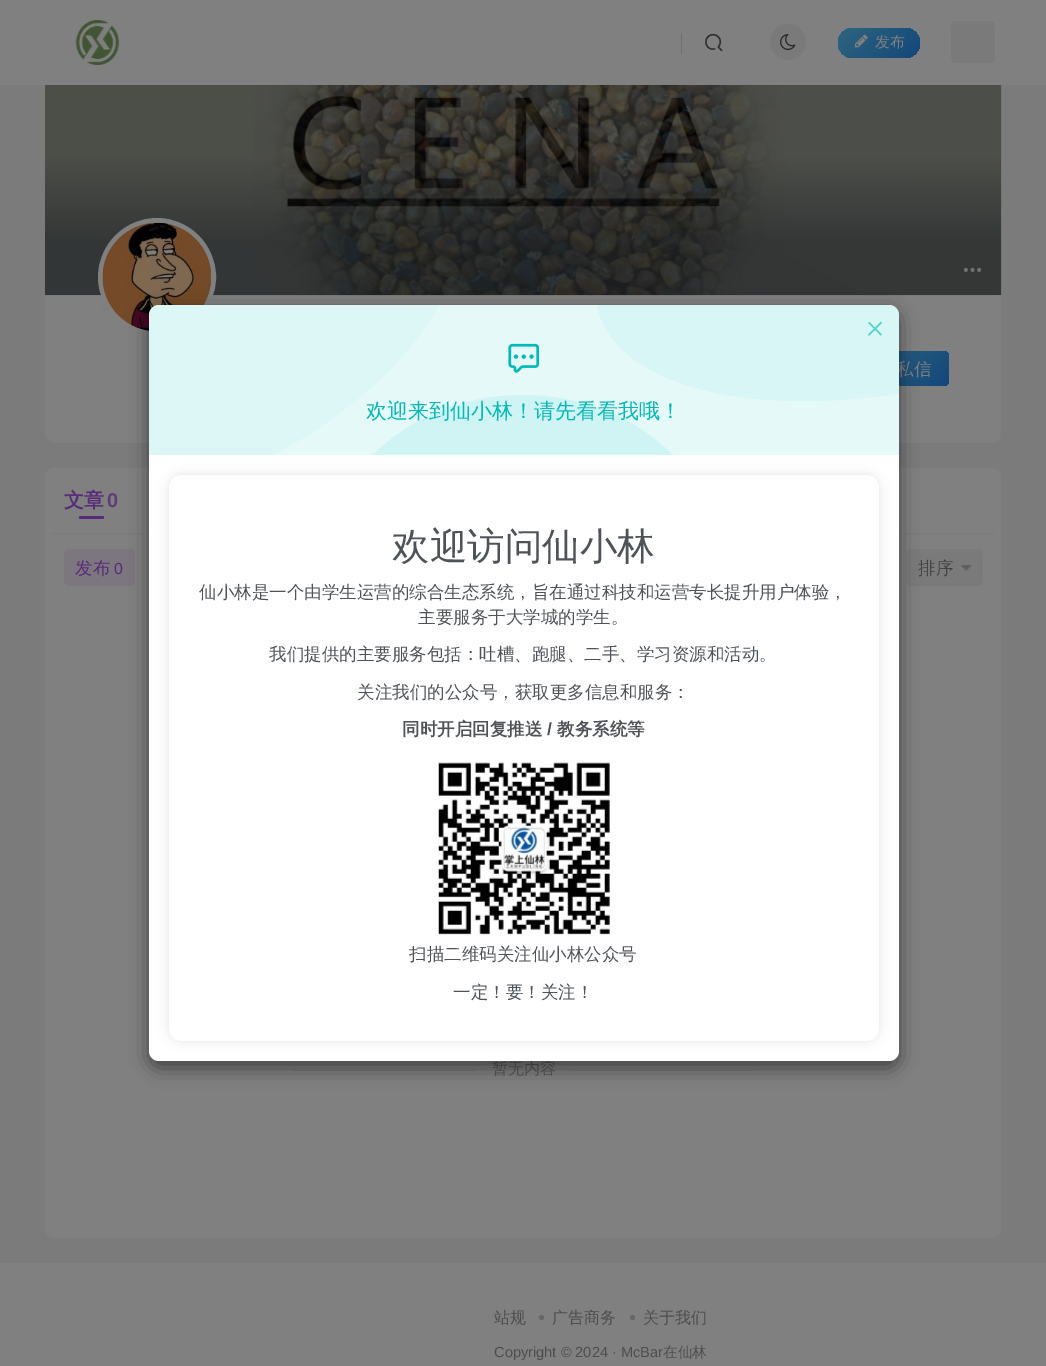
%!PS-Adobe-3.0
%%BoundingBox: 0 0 1046 1366
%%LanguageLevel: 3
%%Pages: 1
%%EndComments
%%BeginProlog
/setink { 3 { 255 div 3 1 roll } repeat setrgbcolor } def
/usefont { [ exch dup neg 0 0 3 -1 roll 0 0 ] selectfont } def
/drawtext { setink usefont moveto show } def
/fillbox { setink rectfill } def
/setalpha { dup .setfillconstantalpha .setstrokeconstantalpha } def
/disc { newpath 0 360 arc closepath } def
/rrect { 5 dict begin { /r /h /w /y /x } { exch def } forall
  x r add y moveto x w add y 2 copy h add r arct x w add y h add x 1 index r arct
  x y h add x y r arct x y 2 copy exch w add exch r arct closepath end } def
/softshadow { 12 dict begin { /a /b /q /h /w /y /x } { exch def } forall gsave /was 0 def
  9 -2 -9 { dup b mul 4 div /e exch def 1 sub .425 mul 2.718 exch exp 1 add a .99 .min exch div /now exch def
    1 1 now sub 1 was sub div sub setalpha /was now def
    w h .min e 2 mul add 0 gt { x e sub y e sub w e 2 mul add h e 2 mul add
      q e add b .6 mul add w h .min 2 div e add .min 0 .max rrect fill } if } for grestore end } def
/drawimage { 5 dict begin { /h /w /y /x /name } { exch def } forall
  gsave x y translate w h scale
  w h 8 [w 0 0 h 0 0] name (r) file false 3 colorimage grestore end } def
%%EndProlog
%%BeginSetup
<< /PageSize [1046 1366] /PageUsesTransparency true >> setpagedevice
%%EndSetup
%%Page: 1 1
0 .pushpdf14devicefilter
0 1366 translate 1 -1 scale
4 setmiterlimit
0 0 1046 1366 123 123 124 fillbox
128 128 128 setink
45 -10 956 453 10 rrect fill
0 0 1046 85 128 128 128 fillbox
(assets/img1.rgb) 75 20 44 45 drawimage
681 33 1 21 110 111 111 fillbox
(assets/img2.rgb) 705 34 18 17 drawimage
122 122 122 setink
788 42 18 disc fill
(assets/img3.rgb) 780 34 16 17 drawimage
gsave 838 28 82 30 15 rrect clip newpath
<< /ShadingType 2 /ColorSpace /DeviceRGB /Coords [851 14 907 71] /Extend [true true] /Function << /FunctionType 3 /Domain [0 1] /Functions [<< /FunctionType 2 /Domain [0 1] /C0 [0.176 0.384 0.494] /C1 [0.176 0.384 0.494] /N 1 >> << /FunctionType 2 /Domain [0 1] /C0 [0.176 0.384 0.494] /C1 [0.075 0.278 0.486] /N 1 >>] /Bounds [0.1] /Encode [0 1 0 1] >> >> shfill grestore
(assets/img4.rgb) 855 34 13 14 drawimage
(发布) 875 47 /WenQuanYiZenHei-Medium 15 128 128 128 drawtext
122 122 122 setink
951 21 44 42 5 rrect fill
(assets/img5.rgb) 45 85 957 211 drawimage
(assets/img6.rgb) 964 267 17 5 drawimage
128 128 128 setink
5 setlinewidth
157 277 56.5 disc stroke
(assets/img7.rgb) 102 222 110 109 drawimage
gsave 858 351 91 35 5 rrect clip newpath
<< /ShadingType 2 /ColorSpace /DeviceRGB /Coords [872 337 935 400] /Extend [true true] /Function << /FunctionType 3 /Domain [0 1] /Functions [<< /FunctionType 2 /Domain [0 1] /C0 [0.176 0.384 0.494] /C1 [0.176 0.384 0.494] /N 1 >> << /FunctionType 2 /Domain [0 1] /C0 [0.176 0.384 0.494] /C1 [0.075 0.278 0.486] /N 1 >>] /Bounds [0.1] /Encode [0 1 0 1] >> >> shfill grestore
(私信) 896 375 /WenQuanYiZenHei-Medium 17.5 128 128 128 drawtext
45 468 956 770 10 rrect fill
51 533 944 1 122 122 122 fillbox
(文章) 64 507 /WenQuanYiZenHei-Bold 20 87 42 122 drawtext
(0) 107 507 /LiberationSans-Bold 20 95 59 123 drawtext
87 42 122 setink
79 516 25 3 1.5 rrect fill
124 119 127 setink
64 549 71 37 5 rrect fill
(发布) 75 574 /WenQuanYiZenHei-Medium 17.5 87 42 122 drawtext
(0) 114 574 /LiberationSans-Regular 16 87 42 122 drawtext
122 122 122 setink
906 549 77 37 5 rrect fill
(排序) 918 574 /WenQuanYiZenHei-Medium 17.5 68 68 68 drawtext
(assets/img8.rgb) 961 565 11 6 drawimage
293 1070 183 1 122 122 122 fillbox
(暂无内容) 492 1074 /WenQuanYiZenHei-Medium 16 89 89 89 drawtext
570 1070 184 1 122 122 122 fillbox
0 0 0 setink
149 311 750 757 10 9.5 0.5 softshadow
255 255 255 setink
149 305 750 756 10 rrect fill
0.1 setalpha
8 196 193 setink
159 305 moveto 889 305 lineto 894.5 305 899 309.5 899 315 curveto 899 455 lineto 149 455 lineto 149 315 lineto 149 309.5 153.5 305 159 305 curveto closepath fill
1 setalpha
208 244 243 setink
523 395 moveto 583 395 636 418 673 455 curveto 373 455 lineto 410 418 463 395 523 395 curveto closepath fill
0.04 setalpha
8 196 193 setink
159 305 moveto 440 305 lineto 406 363 353 408 297 442 curveto 273 455 lineto 149 455 lineto 149 315 lineto 149 309 153 305 159 305 curveto closepath fill
0.06 setalpha
899 394 moveto 746 416 624 387 599 314 curveto 597 305 lineto 889 305 lineto 895 305 899 309 899 315 curveto closepath fill
1 setalpha
(assets/img9.rgb) 868 321 14 15 drawimage
(assets/img10.rgb) 508 343 32 30 drawimage
(欢迎来到仙小林！请先看看我哦！) 366 418 /WenQuanYiZenHei-Medium 21 4 185 182 drawtext
0 0 0 setink
169 475 710 566 13 6 0.1 softshadow
255 255 255 setink
169 475 710 566 13 rrect fill
(欢迎访问仙小林) 392 559 /WenQuanYiZenHei-Medium 37.5 78 83 88 drawtext
(仙小林是一个由学生运营的综合生态系统，旨在通过科技和运营专长提升用户体验，) 199 598 /WenQuanYiZenHei-Medium 17.5 78 83 88 drawtext
(主要服务于大学城的学生。) 418 623 /WenQuanYiZenHei-Medium 17.5 78 83 88 drawtext
(我们提供的主要服务包括：吐槽、跑腿、二手、学习资源和活动。) 269 660 /WenQuanYiZenHei-Medium 17.5 78 83 88 drawtext
(关注我们的公众号，获取更多信息和服务：) 357 698 /WenQuanYiZenHei-Medium 17.5 78 83 88 drawtext
(同时开启回复推送) 402 735 /WenQuanYiZenHei-Bold 17.5 78 83 88 drawtext
(/) 547 735 /LiberationSans-Bold 17.5 78 83 88 drawtext
(教务系统等) 557 735 /WenQuanYiZenHei-Bold 17.5 78 83 88 drawtext
(assets/img11.rgb) 438 762 172 173 drawimage
(扫描二维码关注仙小林公众号) 409 960 /WenQuanYiZenHei-Medium 17.5 78 83 88 drawtext
(一定！要！关注！) 453 998 /WenQuanYiZenHei-Medium 17.5 78 83 88 drawtext
0 1263 1046 103 128 128 128 fillbox
(站规) 494 1323 /WenQuanYiZenHei-Medium 16 77 77 77 drawtext
101 102 103 setink
541.5 1317.5 2.5 disc fill
(广告商务) 552 1323 /WenQuanYiZenHei-Medium 16 77 77 77 drawtext
101 102 103 setink
632.5 1317.5 2.5 disc fill
(关于我们) 643 1323 /WenQuanYiZenHei-Medium 16 77 77 77 drawtext
(Copyright © 2024 · McBar) 494 1357 /LiberationSans-Regular 14.6 77 77 77 drawtext
(在仙林) 663 1357 /WenQuanYiZenHei-Medium 14.6 77 77 77 drawtext
.poppdf14devicefilter showpage
%%EOF
